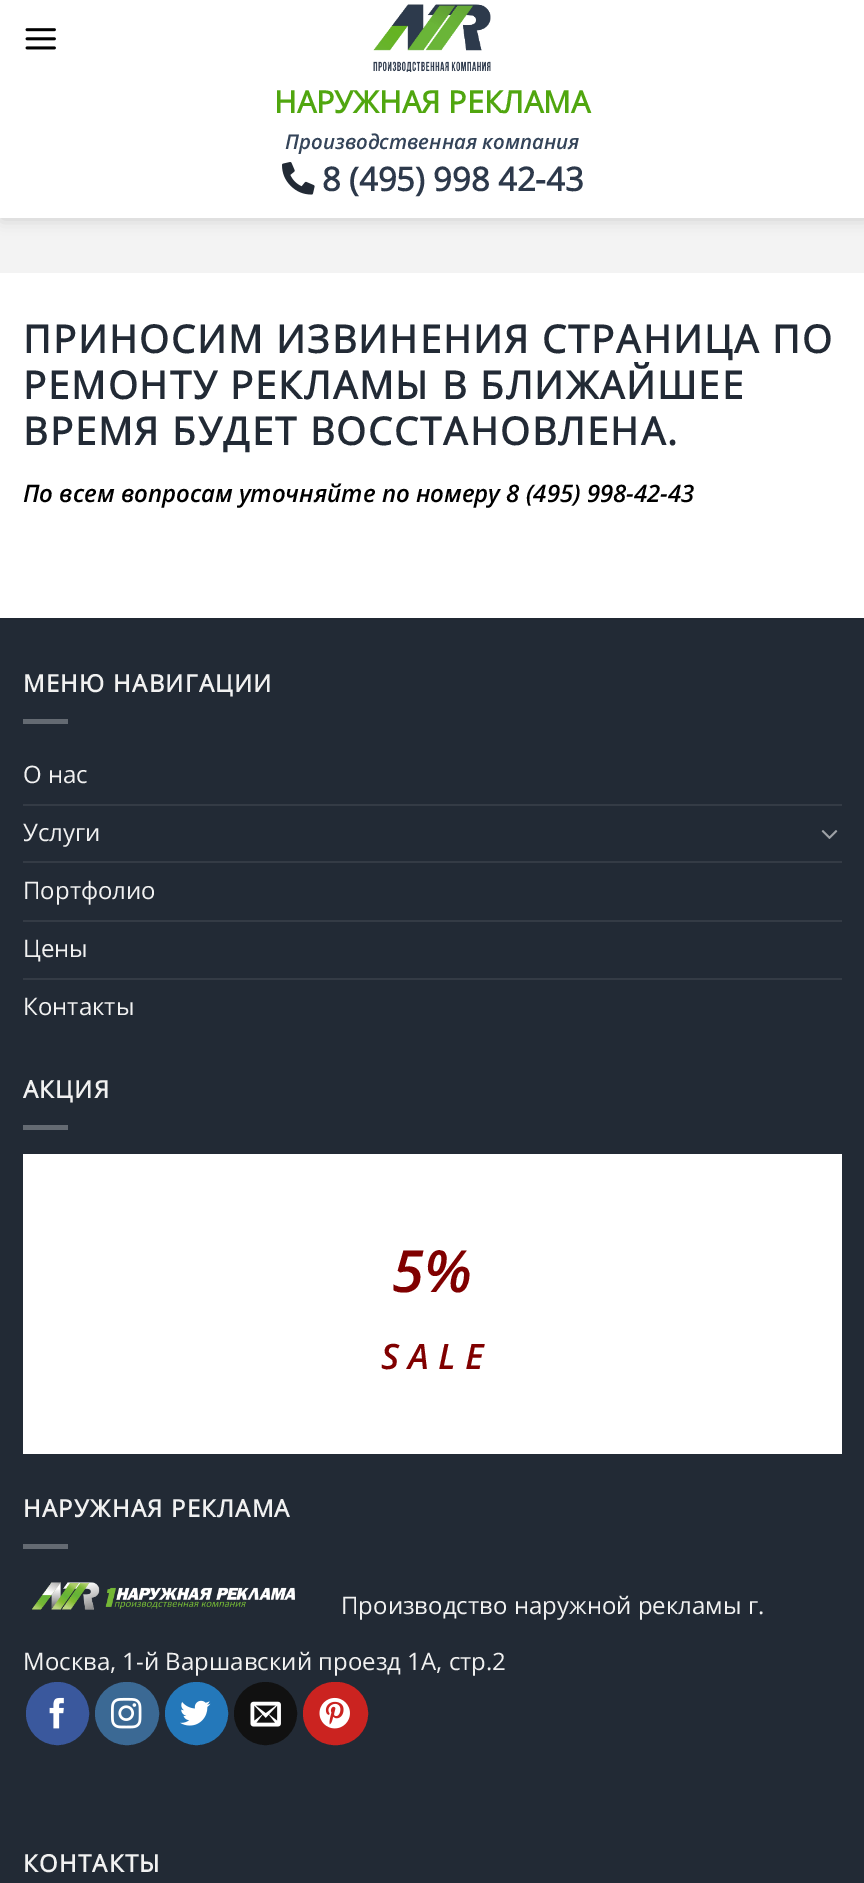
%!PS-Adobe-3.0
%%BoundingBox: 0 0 864 1883
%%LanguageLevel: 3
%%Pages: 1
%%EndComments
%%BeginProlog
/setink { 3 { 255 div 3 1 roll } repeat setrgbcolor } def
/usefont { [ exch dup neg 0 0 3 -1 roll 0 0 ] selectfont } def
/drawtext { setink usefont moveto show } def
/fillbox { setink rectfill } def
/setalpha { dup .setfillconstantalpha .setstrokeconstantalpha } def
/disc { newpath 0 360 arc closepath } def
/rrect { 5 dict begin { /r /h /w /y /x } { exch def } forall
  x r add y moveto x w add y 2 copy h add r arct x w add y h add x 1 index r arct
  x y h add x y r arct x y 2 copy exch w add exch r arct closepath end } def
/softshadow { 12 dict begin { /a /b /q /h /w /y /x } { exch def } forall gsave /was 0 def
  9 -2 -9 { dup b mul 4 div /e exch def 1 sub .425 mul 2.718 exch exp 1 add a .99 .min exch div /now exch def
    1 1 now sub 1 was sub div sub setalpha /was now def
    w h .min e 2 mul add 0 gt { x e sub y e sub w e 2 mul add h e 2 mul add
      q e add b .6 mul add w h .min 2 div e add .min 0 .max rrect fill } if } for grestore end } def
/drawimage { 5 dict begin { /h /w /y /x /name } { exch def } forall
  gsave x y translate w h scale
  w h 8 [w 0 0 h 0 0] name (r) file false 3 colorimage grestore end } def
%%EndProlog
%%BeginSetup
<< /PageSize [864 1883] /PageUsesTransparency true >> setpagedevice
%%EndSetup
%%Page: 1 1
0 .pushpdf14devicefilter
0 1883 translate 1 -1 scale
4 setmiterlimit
0 0 864 1883 255 255 255 fillbox
0 218 864 55 243 243 243 fillbox
0 0 0 setink
2 2 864 217 0 7.5 0.15 softshadow
0 0 864 218 255 255 255 fillbox
(assets/img1.rgb) 25 28 31 22 drawimage
(assets/img2.rgb) 373 4 118 68 drawimage
(НАРУЖНАЯ РЕКЛАМА) 274 113 /OpenSans-Bold 30.6 80 166 15 drawtext
(Производственная компания) 285 149 /OpenSans-SemiBoldItalic 20.4 52 68 89 drawtext
(assets/img3.rgb) 282 162 33 33 drawimage
(8 \(495\) 998 42-43) 322 191 /OpenSans-Bold 32.75 45 57 75 drawtext
/OpenSans-Bold 38.4 usefont
34 42 53 setink
23 353 moveto 1.9 0 (ПРИНОСИМ ИЗВИНЕНИЯ СТРАНИЦА ПО) ashow
23 399 moveto 1.9 0 (РЕМОНТУ РЕКЛАМЫ В БЛИЖАЙШЕЕ) ashow
23 445 moveto 1.9 0 (ВРЕМЯ БУДЕТ ВОССТАНОВЛЕНА.) ashow
(По всем вопросам уточняйте по номеру 8 \(495\) 998-42-43) 23 502 /OpenSans-SemiBoldItalic 24 0 0 0 drawtext
0 620 864 1263 34 42 53 fillbox
0 618 864 2 32 40 50 fillbox
/OpenSans-Bold 24 usefont
241 241 241 setink
23 692 moveto 1.25 0 (МЕНЮ НАВИГАЦИИ) ashow
23 719 45 5 100 106 114 fillbox
(О нас) 23 783 /OpenSans-Regular 24 241 241 241 drawtext
23 804 819 2 52 59 69 fillbox
(Услуги) 23 841 /OpenSans-Regular 24 241 241 241 drawtext
(assets/img4.rgb) 821 830 17 9 drawimage
23 861 819 2 52 59 69 fillbox
(Портфолио) 23 899 /OpenSans-Regular 24 241 241 241 drawtext
23 920 819 2 52 59 69 fillbox
(Цены) 23 957 /OpenSans-Regular 24 241 241 241 drawtext
23 978 819 2 52 59 69 fillbox
(Контакты) 23 1015 /OpenSans-Regular 24 241 241 241 drawtext
/OpenSans-Bold 24 usefont
23 1098 moveto 1.25 0 (АКЦИЯ) ashow
23 1125 45 5 100 106 114 fillbox
23 1154 819 300 255 255 255 fillbox
(5%) 392 1292 /OpenSans-SemiBoldItalic 58 128 0 0 drawtext
(S A L E) 381 1369 /OpenSans-SemiBoldItalic 35 128 0 0 drawtext
/OpenSans-Bold 24 usefont
241 241 241 setink
23 1517 moveto 1.25 0 (НАРУЖНАЯ РЕКЛАМА) ashow
23 1544 45 5 100 106 114 fillbox
(assets/img5.rgb) 32 1582 263 28 drawimage
(Производство наружной рекламы г.) 341 1614 /OpenSans-Regular 24 241 241 241 drawtext
(Москва, 1-й Варшавский проезд 1А, стр.2) 23 1670 /OpenSans-Regular 24 241 241 241 drawtext
58 88 157 setink
57.5 1713.5 30.5 disc gsave fill grestore
2 setlinewidth
stroke
(assets/img6.rgb) 49 1697 15 32 drawimage
59 105 148 setink
96 1683 62 61 30.5 rrect gsave fill grestore
stroke
(assets/img7.rgb) 111 1697 31 32 drawimage
36 120 186 setink
196.5 1713.5 30.5 disc gsave fill grestore
stroke
(assets/img8.rgb) 180 1700 31 26 drawimage
17 17 17 setink
265.5 1713.5 30.5 disc gsave fill grestore
stroke
(assets/img9.rgb) 250 1701 31 26 drawimage
203 35 32 setink
304 1683 63 61 30.5 rrect gsave fill grestore
stroke
(assets/img10.rgb) 319 1697 31 32 drawimage
/OpenSans-Bold 24 usefont
241 241 241 setink
23 1872 moveto 1.25 0 (КОНТАКТЫ) ashow
.poppdf14devicefilter showpage
%%EOF
